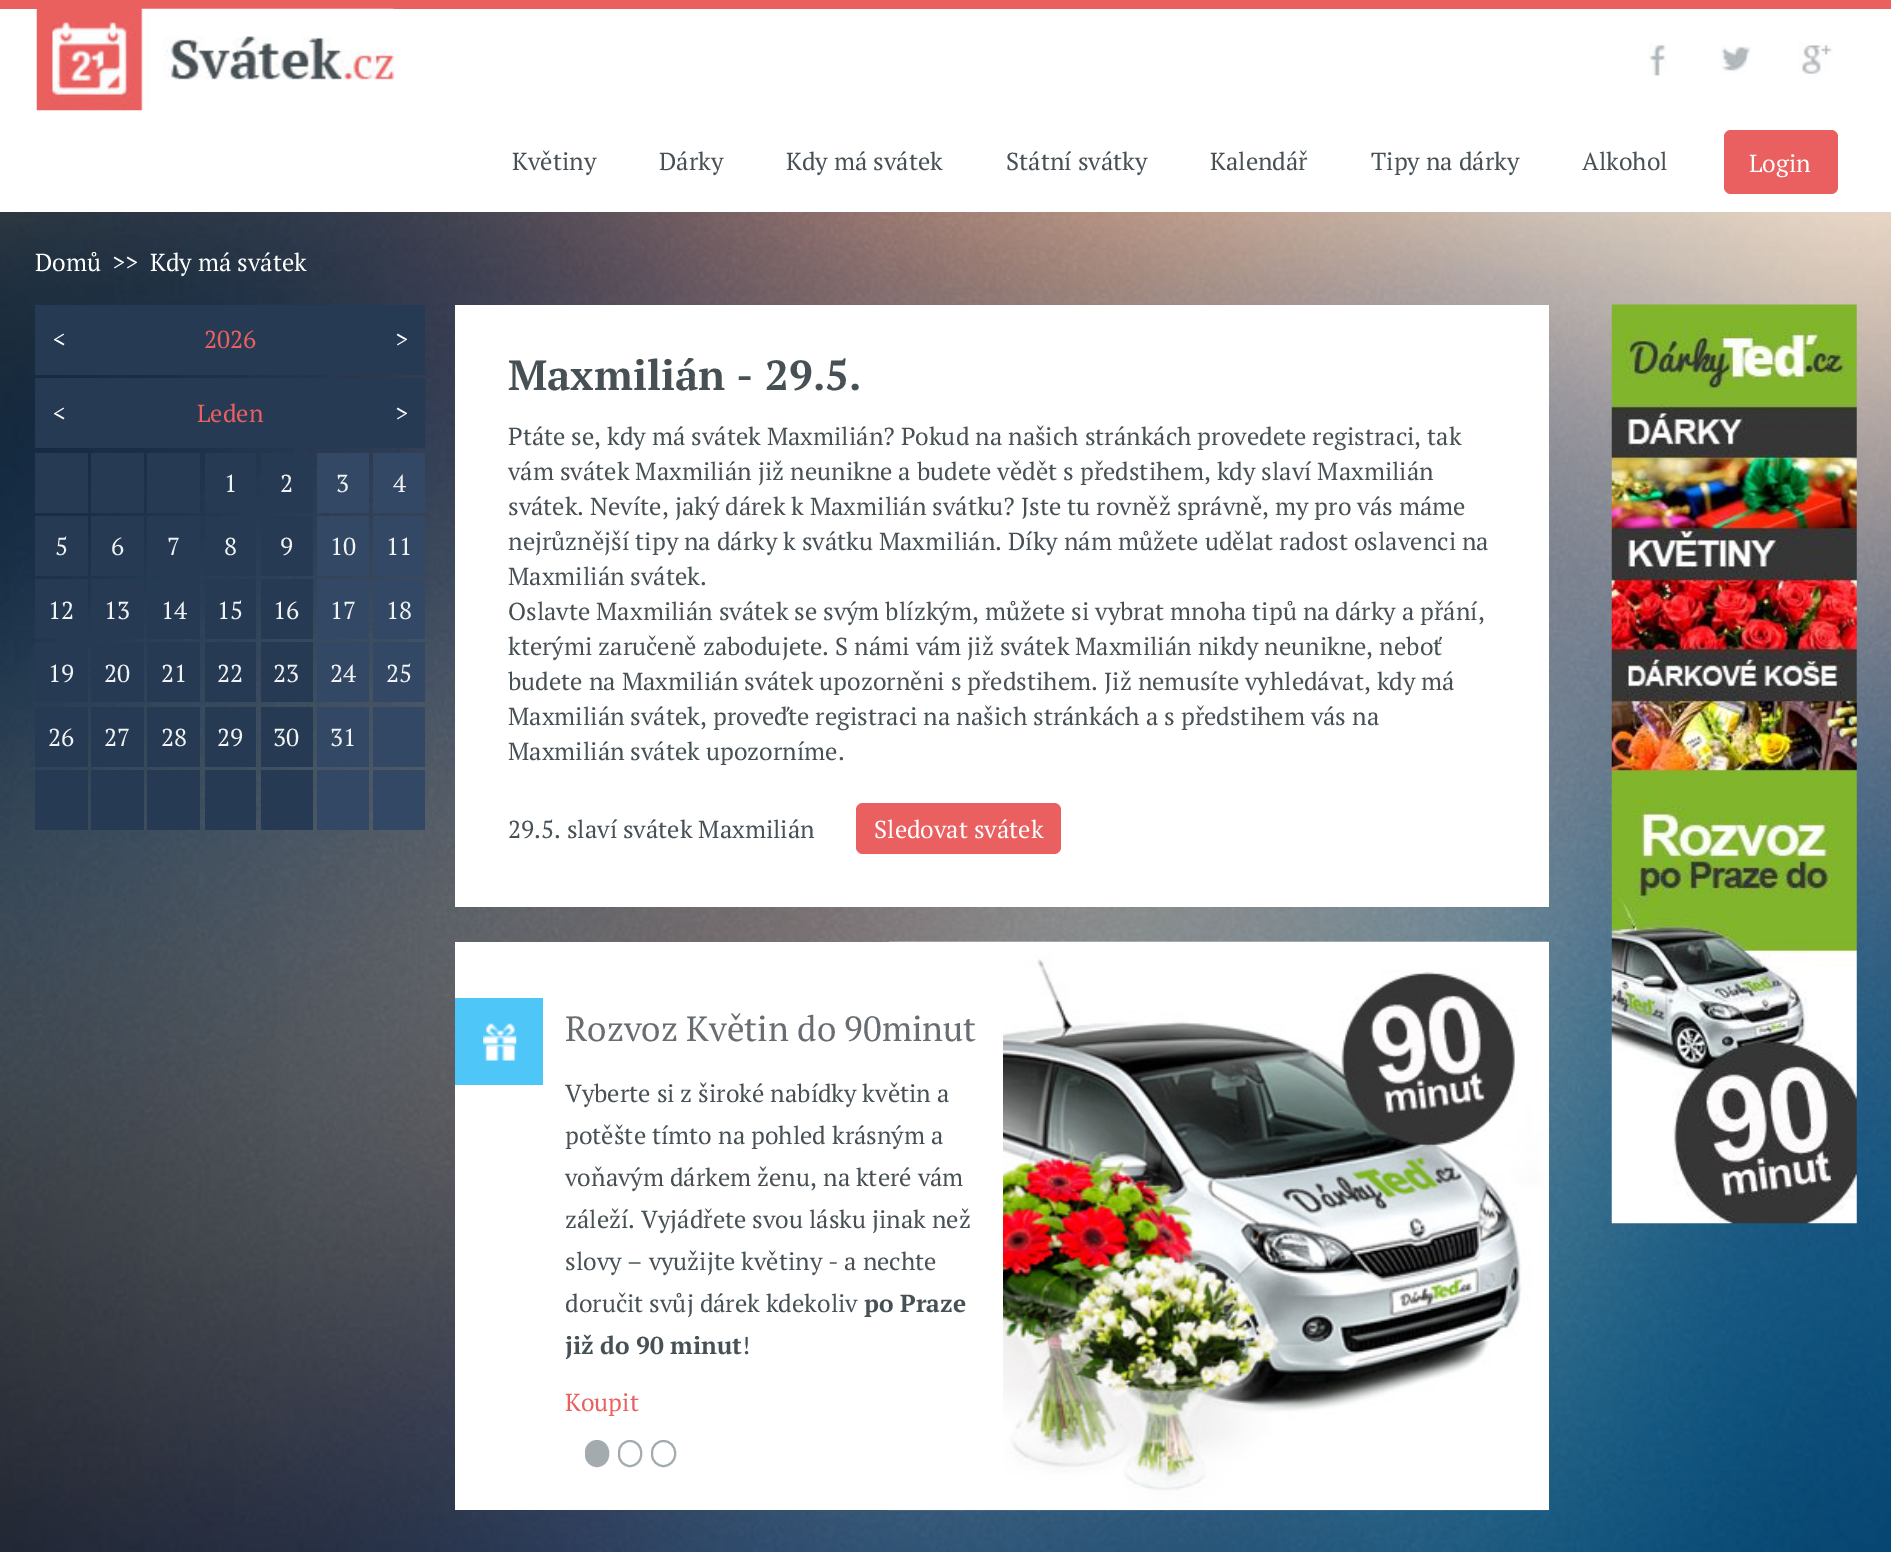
%!PS-Adobe-3.0
%%BoundingBox: 0 0 1891 1552
%%LanguageLevel: 3
%%Pages: 1
%%EndComments
%%BeginProlog
/setink { 3 { 255 div 3 1 roll } repeat setrgbcolor } def
/usefont { [ exch dup neg 0 0 3 -1 roll 0 0 ] selectfont } def
/drawtext { setink usefont moveto show } def
/fillbox { setink rectfill } def
/rrect { 5 dict begin { /r /h /w /y /x } { exch def } forall
  x r add y moveto x w add y 2 copy h add r arct x w add y h add x 1 index r arct
  x y h add x y r arct x y 2 copy exch w add exch r arct closepath end } def
/drawimage { 5 dict begin { /h /w /y /x /name } { exch def } forall
  gsave x y translate w h scale
  w h 8 [w 0 0 h 0 0] name (r) file false 3 colorimage grestore end } def
%%EndProlog
%%BeginSetup
<< /PageSize [1891 1552] >> setpagedevice
%%EndSetup
%%Page: 1 1
0 1552 translate 1 -1 scale
4 setmiterlimit
0 0 1891 1552 255 255 255 fillbox
(assets/img1.rgb) 0 212 1891 1340 drawimage
0 0 1891 9 234 96 94 fillbox
(assets/img2.rgb) 36 8 358 103 drawimage
(assets/img3.rgb) 1648 43 19 33 drawimage
(assets/img4.rgb) 1720 46 31 28 drawimage
(assets/img5.rgb) 1799 42 34 35 drawimage
(Květiny) 512 170 /PTSerif-Regular 24.5 71 80 85 drawtext
(Dárky) 659 170 /PTSerif-Regular 24.5 71 80 85 drawtext
(Kdy má svátek) 786 170 /PTSerif-Regular 24.5 71 80 85 drawtext
(Státní svátky) 1006 170 /PTSerif-Regular 24.5 71 80 85 drawtext
(Kalendář) 1210 170 /PTSerif-Regular 24.5 71 80 85 drawtext
(Tipy na dárky) 1371 170 /PTSerif-Regular 24.5 71 80 85 drawtext
(Alkohol) 1582 170 /PTSerif-Regular 24.5 71 80 85 drawtext
234 96 96 setink
1724 130 114 64 7 rrect fill
(Login) 1749 172 /PTSerif-Regular 24.5 255 255 255 drawtext
(Domů) 35 271 /PTSerif-Regular 24.5 255 255 255 drawtext
(>>) 112 271 /PTSerif-Regular 24.5 255 255 255 drawtext
(Kdy má svátek) 150 271 /PTSerif-Regular 24.5 255 255 255 drawtext
35 305 390 70 38 58 84 fillbox
(<) 53 348 /PTSerif-Regular 24.5 255 255 255 drawtext
(2026) 204 348 /PTSerif-Regular 24.5 234 96 96 drawtext
(>) 395 348 /PTSerif-Regular 24.5 255 255 255 drawtext
35 378 390 70 38 58 84 fillbox
(<) 53 422 /PTSerif-Regular 24.5 255 255 255 drawtext
(Leden) 197 422 /PTSerif-Regular 24.5 234 96 96 drawtext
(>) 395 422 /PTSerif-Regular 24.5 255 255 255 drawtext
35 453 53 60 38 58 84 fillbox
91 453 53 60 38 58 84 fillbox
147 453 53 60 38 58 84 fillbox
205 453 51 60 38 58 84 fillbox
(1) 224 492 /PTSerif-Regular 24.5 241 243 245 drawtext
261 453 52 60 38 58 84 fillbox
(2) 280 492 /PTSerif-Regular 24.5 241 243 245 drawtext
317 453 52 60 50 72 100 fillbox
(3) 336 492 /PTSerif-Regular 24.5 241 243 245 drawtext
373 453 52 60 50 72 100 fillbox
(4) 393 492 /PTSerif-Regular 24.5 241 243 245 drawtext
35 516 53 60 38 58 84 fillbox
(5) 55 555 /PTSerif-Regular 24.5 241 243 245 drawtext
91 516 53 60 38 58 84 fillbox
(6) 111 555 /PTSerif-Regular 24.5 241 243 245 drawtext
147 516 53 60 38 58 84 fillbox
(7) 167 555 /PTSerif-Regular 24.5 241 243 245 drawtext
205 516 51 60 38 58 84 fillbox
(8) 224 555 /PTSerif-Regular 24.5 241 243 245 drawtext
261 516 52 60 38 58 84 fillbox
(9) 280 555 /PTSerif-Regular 24.5 241 243 245 drawtext
317 516 52 60 50 72 100 fillbox
(10) 330 555 /PTSerif-Regular 24.5 241 243 245 drawtext
373 516 52 60 50 72 100 fillbox
(11) 386 555 /PTSerif-Regular 24.5 241 243 245 drawtext
35 579 53 60 38 58 84 fillbox
(12) 48 619 /PTSerif-Regular 24.5 241 243 245 drawtext
91 579 53 60 38 58 84 fillbox
(13) 104 619 /PTSerif-Regular 24.5 241 243 245 drawtext
147 579 53 60 38 58 84 fillbox
(14) 161 619 /PTSerif-Regular 24.5 241 243 245 drawtext
205 579 51 60 38 58 84 fillbox
(15) 217 619 /PTSerif-Regular 24.5 241 243 245 drawtext
261 579 52 60 38 58 84 fillbox
(16) 273 619 /PTSerif-Regular 24.5 241 243 245 drawtext
317 579 52 60 50 72 100 fillbox
(17) 330 619 /PTSerif-Regular 24.5 241 243 245 drawtext
373 579 52 60 50 72 100 fillbox
(18) 386 619 /PTSerif-Regular 24.5 241 243 245 drawtext
35 642 53 60 38 58 84 fillbox
(19) 48 682 /PTSerif-Regular 24.5 241 243 245 drawtext
91 642 53 60 38 58 84 fillbox
(20) 104 682 /PTSerif-Regular 24.5 241 243 245 drawtext
147 642 53 60 38 58 84 fillbox
(21) 161 682 /PTSerif-Regular 24.5 241 243 245 drawtext
205 642 51 60 38 58 84 fillbox
(22) 217 682 /PTSerif-Regular 24.5 241 243 245 drawtext
261 642 52 60 38 58 84 fillbox
(23) 273 682 /PTSerif-Regular 24.5 241 243 245 drawtext
317 642 52 60 50 72 100 fillbox
(24) 330 682 /PTSerif-Regular 24.5 241 243 245 drawtext
373 642 52 60 50 72 100 fillbox
(25) 386 682 /PTSerif-Regular 24.5 241 243 245 drawtext
35 707 53 60 38 58 84 fillbox
(26) 48 746 /PTSerif-Regular 24.5 241 243 245 drawtext
91 707 53 60 38 58 84 fillbox
(27) 104 746 /PTSerif-Regular 24.5 241 243 245 drawtext
147 707 53 60 38 58 84 fillbox
(28) 161 746 /PTSerif-Regular 24.5 241 243 245 drawtext
205 707 51 60 38 58 84 fillbox
(29) 217 746 /PTSerif-Regular 24.5 241 243 245 drawtext
261 707 52 60 38 58 84 fillbox
(30) 273 746 /PTSerif-Regular 24.5 241 243 245 drawtext
317 707 52 60 50 72 100 fillbox
(31) 330 746 /PTSerif-Regular 24.5 241 243 245 drawtext
373 707 52 60 50 72 100 fillbox
35 770 53 60 38 58 84 fillbox
91 770 53 60 38 58 84 fillbox
147 770 53 60 38 58 84 fillbox
205 770 51 60 38 58 84 fillbox
261 770 52 60 38 58 84 fillbox
317 770 52 60 50 72 100 fillbox
373 770 52 60 50 72 100 fillbox
455 305 1094 602 255 255 255 fillbox
(Maxmilián - 29.5.) 508 390 /PTSerif-Bold 42 71 80 85 drawtext
(Ptáte se, kdy má svátek Maxmilián? Pokud na našich stránkách provedete registraci, tak) 508 445 /PTSerif-Regular 24.5 71 80 85 drawtext
(vám svátek Maxmilián již neunikne a budete vědět s předstihem, kdy slaví Maxmilián) 508 480 /PTSerif-Regular 24.5 71 80 85 drawtext
(svátek. Nevíte, jaký dárek k Maxmilián svátku? Jste tu rovněž správně, my pro vás máme) 508 515 /PTSerif-Regular 24.5 71 80 85 drawtext
(nejrůznější tipy na dárky k svátku Maxmilián. Díky nám můžete udělat radost oslavenci na) 508 550 /PTSerif-Regular 24.5 71 80 85 drawtext
(Maxmilián svátek.) 508 585 /PTSerif-Regular 24.5 71 80 85 drawtext
(Oslavte Maxmilián svátek se svým blízkým, můžete si vybrat mnoha tipů na dárky a přání,) 508 620 /PTSerif-Regular 24.5 71 80 85 drawtext
(kterými zaručeně zabodujete. S námi vám již svátek Maxmilián nikdy neunikne, neboť) 508 655 /PTSerif-Regular 24.5 71 80 85 drawtext
(budete na Maxmilián svátek upozorněni s předstihem. Již nemusíte vyhledávat, kdy má) 508 690 /PTSerif-Regular 24.5 71 80 85 drawtext
(Maxmilián svátek, proveďte registraci na našich stránkách a s předstihem vás na) 508 725 /PTSerif-Regular 24.5 71 80 85 drawtext
(Maxmilián svátek upozorníme.) 508 760 /PTSerif-Regular 24.5 71 80 85 drawtext
(29.5. slaví svátek Maxmilián) 508 838 /PTSerif-Regular 24.5 71 80 85 drawtext
234 96 96 setink
856 803 205 51 7 rrect fill
(Sledovat svátek) 874 838 /PTSerif-Regular 24.5 255 255 255 drawtext
1548 942 1 568 255 255 255 fillbox
(assets/img6.rgb) 889 941 660 570 drawimage
455 942 548 568 255 255 255 fillbox
455 998 88 87 79 198 248 fillbox
(assets/img7.rgb) 483 1023 34 38 drawimage
(Rozvoz Květin do 90minut) 565 1041 /PTSerif-Regular 35 104 109 113 drawtext
(Vyberte si z široké nabídky květin a) 565 1102 /PTSerif-Regular 24.5 71 80 85 drawtext
(potěšte tímto na pohled krásným a) 565 1144 /PTSerif-Regular 24.5 71 80 85 drawtext
(voňavým dárkem ženu, na které vám) 565 1186 /PTSerif-Regular 24.5 71 80 85 drawtext
(záleží. Vyjádřete svou lásku jinak než) 565 1228 /PTSerif-Regular 24.5 71 80 85 drawtext
(slovy – využijte květiny - a nechte) 565 1270 /PTSerif-Regular 24.5 71 80 85 drawtext
(doručit svůj dárek kdekoliv) 565 1312 /PTSerif-Regular 24.5 71 80 85 drawtext
(po Praze) 864 1312 /PTSerif-Bold 24.5 71 80 85 drawtext
(již do 90 minut) 565 1354 /PTSerif-Bold 24.5 71 80 85 drawtext
(!) 742 1354 /PTSerif-Regular 24.5 71 80 85 drawtext
(Koupit) 565 1411 /PTSerif-Regular 24.5 234 96 96 drawtext
163 171 175 setink
586 1441 22 25 11 rrect gsave fill grestore
2 setlinewidth
stroke
619 1441 22 25 11 rrect stroke
652 1441 23 25 11.5 rrect stroke
(assets/img8.rgb) 1611 304 246 920 drawimage
showpage
%%EOF
